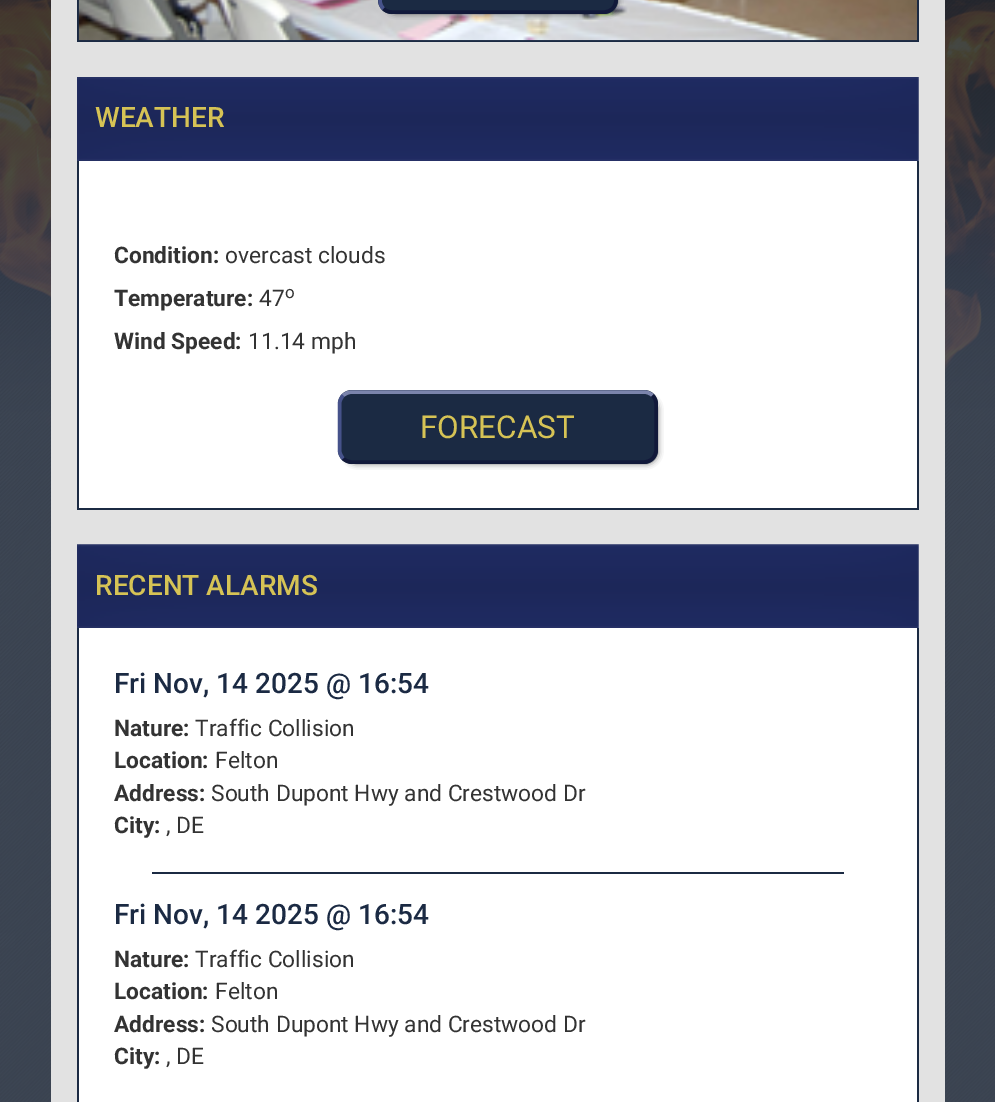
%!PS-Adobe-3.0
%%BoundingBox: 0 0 995 1102
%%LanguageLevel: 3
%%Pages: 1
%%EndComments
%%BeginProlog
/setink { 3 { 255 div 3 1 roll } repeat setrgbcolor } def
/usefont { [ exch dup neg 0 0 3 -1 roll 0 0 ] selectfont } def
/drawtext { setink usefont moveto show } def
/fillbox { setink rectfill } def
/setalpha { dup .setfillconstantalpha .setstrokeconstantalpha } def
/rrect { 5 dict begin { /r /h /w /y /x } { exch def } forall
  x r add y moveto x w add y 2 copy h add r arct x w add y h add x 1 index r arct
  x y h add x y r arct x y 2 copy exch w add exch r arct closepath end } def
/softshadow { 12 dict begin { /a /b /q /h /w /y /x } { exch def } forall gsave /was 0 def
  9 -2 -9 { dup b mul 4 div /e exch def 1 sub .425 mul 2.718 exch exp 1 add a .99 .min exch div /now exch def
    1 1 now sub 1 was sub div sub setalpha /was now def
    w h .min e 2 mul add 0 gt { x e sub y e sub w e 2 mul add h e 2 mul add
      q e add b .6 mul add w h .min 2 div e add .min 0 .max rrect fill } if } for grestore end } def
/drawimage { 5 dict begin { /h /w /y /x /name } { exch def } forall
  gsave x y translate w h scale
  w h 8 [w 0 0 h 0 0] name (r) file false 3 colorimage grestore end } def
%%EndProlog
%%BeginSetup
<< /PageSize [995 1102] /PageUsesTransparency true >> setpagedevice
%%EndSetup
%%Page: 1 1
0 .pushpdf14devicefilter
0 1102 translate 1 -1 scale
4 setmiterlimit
0 0 995 1102 255 255 255 fillbox
(assets/img1.rgb) 0 0 995 1102 drawimage
51 0 894 1102 226 226 226 fillbox
917 0 2 42 27 42 67 fillbox
77 40 842 2 27 42 67 fillbox
77 0 2 42 27 42 67 fillbox
(assets/img2.rgb) 78 0 839 41 drawimage
0 0 0 setink
387 -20 229 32 9 3.5 1 softshadow
27 42 67 setink
378 -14 240 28 14 rrect fill
18 25 58 setink
3.5 setlinewidth
612.5 -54 moveto 614.5 -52 616 -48.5 616 -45.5 curveto 616 0 lineto 616 3 614.5 6.5 612.5 8.5 curveto 610 11 607 12 604 12 curveto 392 12 lineto 389 12 385.5 11 383.5 8.5 curveto stroke
70 82 138 setink
383.5 8.5 moveto 381 6.5 380 3 380 0 curveto 380 -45.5 lineto 380 -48.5 381 -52 383.5 -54 curveto stroke
(assets/img3.rgb) 77 77 842 84 drawimage
(WEATHER) 95 127 /Roboto-Medium 28 214 195 85 drawtext
79 161 838 347 255 255 255 fillbox
917 161 2 348 27 42 67 fillbox
77 508 842 2 27 42 67 fillbox
77 161 2 348 27 42 67 fillbox
(Condition:) 114 263 /Roboto-Bold 22.75 51 51 51 drawtext
(overcast clouds) 225 263 /Roboto-Regular 22.75 51 51 51 drawtext
(Temperature:) 114 306 /Roboto-Bold 22.75 51 51 51 drawtext
(47) 259 306 /Roboto-Regular 22.75 51 51 51 drawtext
(o) 285 298 /Roboto-Regular 17 51 51 51 drawtext
(Wind Speed:) 114 349 /Roboto-Bold 22.75 51 51 51 drawtext
(11.14 mph) 248 349 /Roboto-Regular 22.75 51 51 51 drawtext
0 0 0 setink
347 399 309 63 9 3.5 1 softshadow
27 42 67 setink
338 390 320 74 14 rrect fill
123 132 172 setink
343 395.5 moveto 345.5 393.5 348.5 392 352 392 curveto 644 392 lineto 647 392 650.5 393.5 652.5 395.5 curveto stroke
18 25 58 setink
652.5 395.5 moveto 655 398 656 401 656 404 curveto 656 450 lineto 656 453 655 456 652.5 458.5 curveto 650.5 460.5 647 462 644 462 curveto 352 462 lineto 348.5 462 345.5 460.5 343 458.5 curveto stroke
70 82 138 setink
343 458.5 moveto 341 456 339.5 453 339.5 450 curveto 339.5 404 lineto 339.5 401 341 398 343 395.5 curveto stroke
(FORECAST) 420 438 /Roboto-Regular 31.5 214 195 85 drawtext
(assets/img4.rgb) 77 544 842 84 drawimage
(RECENT ALARMS) 95 595 /Roboto-Medium 28 214 195 85 drawtext
79 628 838 474 255 255 255 fillbox
917 628 2 474 27 42 67 fillbox
77 628 2 474 27 42 67 fillbox
(Fri Nov, 14 2025 @ 16:54) 114 693 /Roboto-Medium 28 27 42 67 drawtext
(Nature:) 114 736 /Roboto-Bold 22.75 51 51 51 drawtext
(Traffic Collision) 195 736 /Roboto-Regular 22.75 51 51 51 drawtext
(Location:) 114 768 /Roboto-Bold 22.75 51 51 51 drawtext
(Felton) 215 768 /Roboto-Regular 22.75 51 51 51 drawtext
(Address:) 114 801 /Roboto-Bold 22.75 51 51 51 drawtext
(South Dupont Hwy and Crestwood Dr) 211 801 /Roboto-Regular 22.75 51 51 51 drawtext
(City:) 114 833 /Roboto-Bold 22.75 51 51 51 drawtext
(, DE) 166 833 /Roboto-Regular 22.75 51 51 51 drawtext
152 872 692 2 27 42 67 fillbox
(Fri Nov, 14 2025 @ 16:54) 114 924 /Roboto-Medium 28 27 42 67 drawtext
(Nature:) 114 967 /Roboto-Bold 22.75 51 51 51 drawtext
(Traffic Collision) 195 967 /Roboto-Regular 22.75 51 51 51 drawtext
(Location:) 114 999 /Roboto-Bold 22.75 51 51 51 drawtext
(Felton) 215 999 /Roboto-Regular 22.75 51 51 51 drawtext
(Address:) 114 1032 /Roboto-Bold 22.75 51 51 51 drawtext
(South Dupont Hwy and Crestwood Dr) 211 1032 /Roboto-Regular 22.75 51 51 51 drawtext
(City:) 114 1064 /Roboto-Bold 22.75 51 51 51 drawtext
(, DE) 166 1064 /Roboto-Regular 22.75 51 51 51 drawtext
.poppdf14devicefilter showpage
%%EOF
